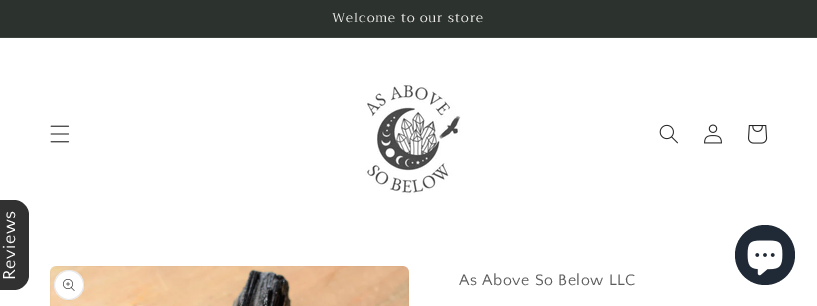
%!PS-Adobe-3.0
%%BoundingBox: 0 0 817 306
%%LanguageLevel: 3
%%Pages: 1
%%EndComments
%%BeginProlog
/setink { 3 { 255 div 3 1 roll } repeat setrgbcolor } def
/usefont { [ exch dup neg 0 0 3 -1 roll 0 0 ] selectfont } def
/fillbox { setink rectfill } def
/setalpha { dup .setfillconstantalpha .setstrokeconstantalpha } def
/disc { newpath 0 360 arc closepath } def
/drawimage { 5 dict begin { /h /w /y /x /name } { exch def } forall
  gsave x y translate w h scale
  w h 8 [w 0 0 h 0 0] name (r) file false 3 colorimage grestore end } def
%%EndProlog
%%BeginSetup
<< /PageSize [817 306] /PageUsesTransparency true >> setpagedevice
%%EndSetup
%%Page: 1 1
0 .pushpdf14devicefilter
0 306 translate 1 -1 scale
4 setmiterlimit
0 0 817 306 255 255 255 fillbox
0 0 817 37 44 51 47 fillbox
0 37 817 1 60 66 62 fillbox
/Trirong-Regular 13 usefont
239 236 236 setink
332 22 moveto 1 0 (Welcome to our store) ashow
(assets/img1.rgb) 50 125 20 18 drawimage
(assets/img2.rgb) 365 83 96 112 drawimage
(assets/img3.rgb) 659 124 19 20 drawimage
(assets/img4.rgb) 704 124 18 20 drawimage
(assets/img5.rgb) 748 125 20 19 drawimage
49 49 49 setink
-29 290 moveto -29 200 lineto 14 200 lineto 22 200 29 207 29 215 curveto 29 275 lineto 29 283 22 290 14 290 curveto closepath fill
/QuattrocentoSans-Regular 18 usefont
255 255 255 setink
gsave 15 280 translate -90 rotate 0 0 moveto 0.6 0 (Reviews) ashow grestore
(assets/img6.rgb) 50 266 359 40 drawimage
69 285 15 disc fill
0.1 setalpha
37 37 37 setink
69 285 14.5 disc stroke
1 setalpha
(assets/img7.rgb) 63 279 12 12 drawimage
/QuattrocentoSans-Regular 16 usefont
92 92 92 setink
459 285 moveto 0.6 0 (As Above So Below LLC) ashow
32 42 54 setink
765 255 30 disc fill
(assets/img8.rgb) 747 240 36 36 drawimage
.poppdf14devicefilter showpage
%%EOF
